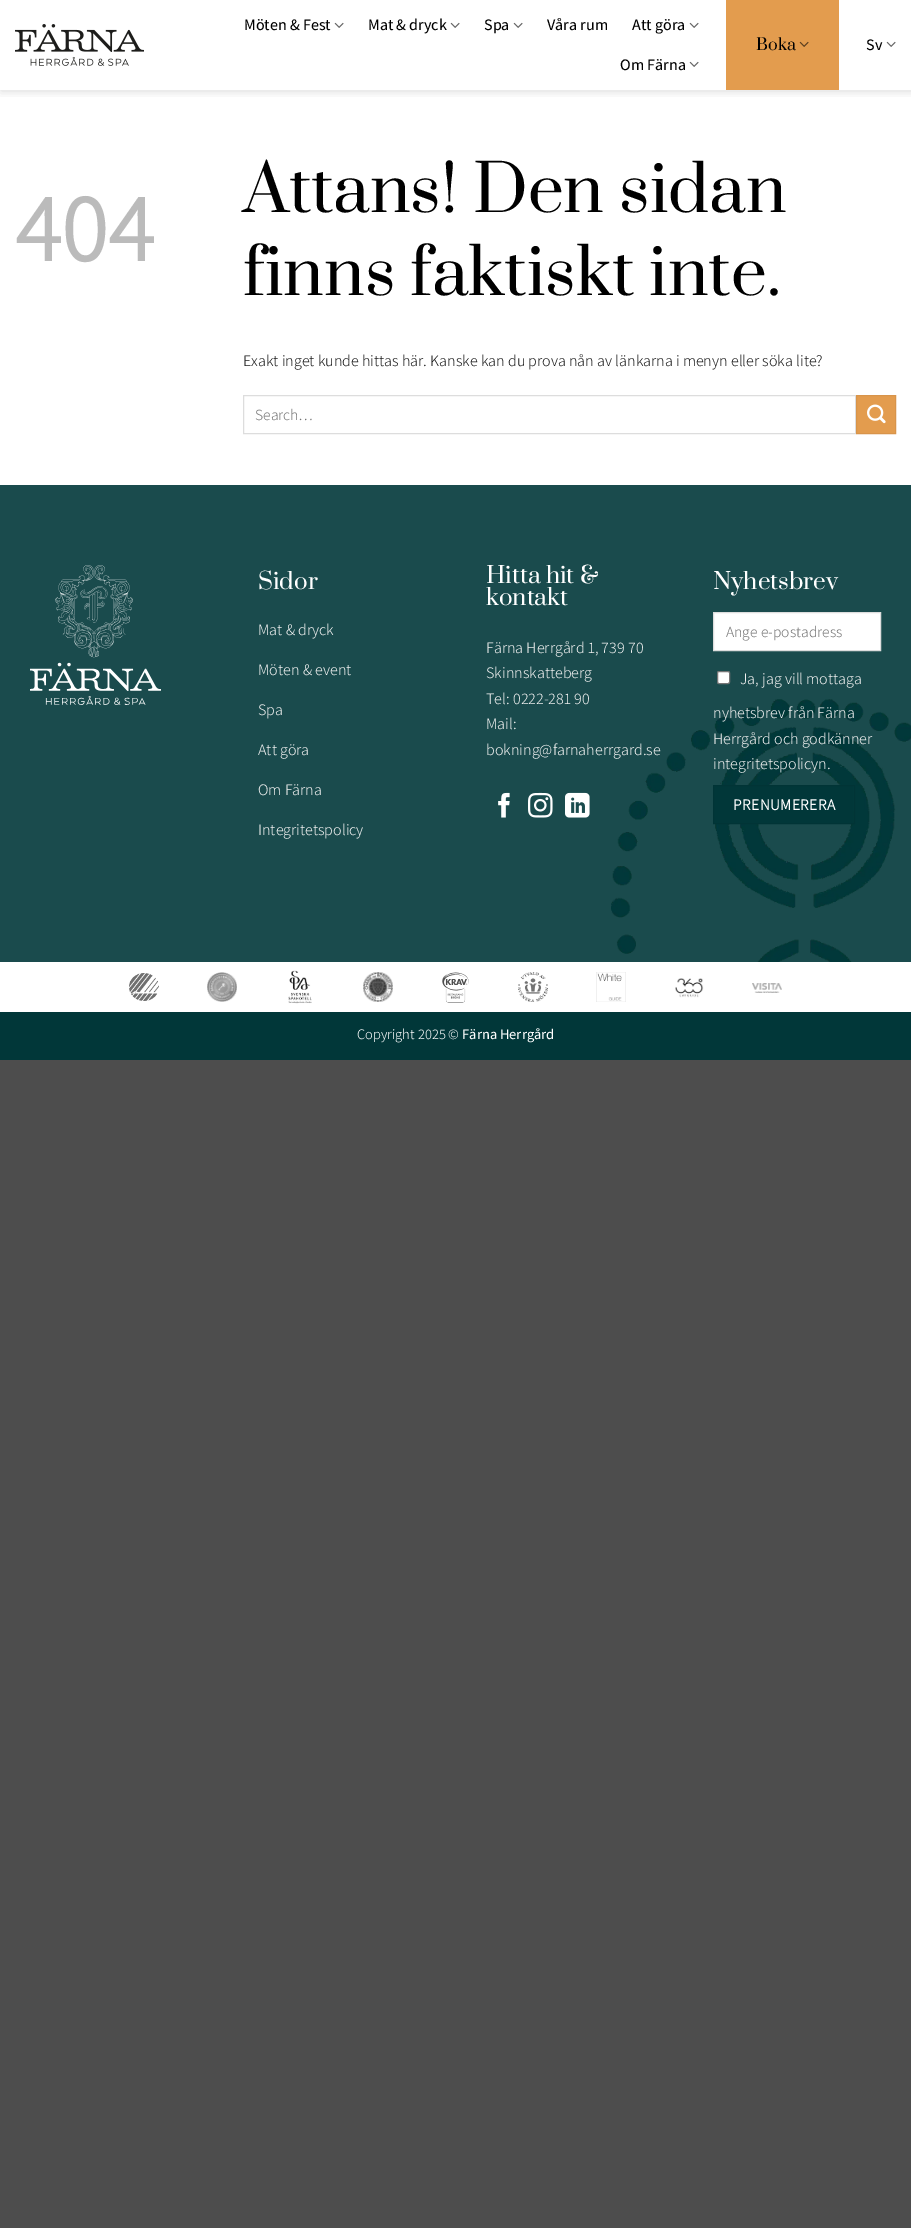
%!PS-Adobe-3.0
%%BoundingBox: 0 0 911 2228
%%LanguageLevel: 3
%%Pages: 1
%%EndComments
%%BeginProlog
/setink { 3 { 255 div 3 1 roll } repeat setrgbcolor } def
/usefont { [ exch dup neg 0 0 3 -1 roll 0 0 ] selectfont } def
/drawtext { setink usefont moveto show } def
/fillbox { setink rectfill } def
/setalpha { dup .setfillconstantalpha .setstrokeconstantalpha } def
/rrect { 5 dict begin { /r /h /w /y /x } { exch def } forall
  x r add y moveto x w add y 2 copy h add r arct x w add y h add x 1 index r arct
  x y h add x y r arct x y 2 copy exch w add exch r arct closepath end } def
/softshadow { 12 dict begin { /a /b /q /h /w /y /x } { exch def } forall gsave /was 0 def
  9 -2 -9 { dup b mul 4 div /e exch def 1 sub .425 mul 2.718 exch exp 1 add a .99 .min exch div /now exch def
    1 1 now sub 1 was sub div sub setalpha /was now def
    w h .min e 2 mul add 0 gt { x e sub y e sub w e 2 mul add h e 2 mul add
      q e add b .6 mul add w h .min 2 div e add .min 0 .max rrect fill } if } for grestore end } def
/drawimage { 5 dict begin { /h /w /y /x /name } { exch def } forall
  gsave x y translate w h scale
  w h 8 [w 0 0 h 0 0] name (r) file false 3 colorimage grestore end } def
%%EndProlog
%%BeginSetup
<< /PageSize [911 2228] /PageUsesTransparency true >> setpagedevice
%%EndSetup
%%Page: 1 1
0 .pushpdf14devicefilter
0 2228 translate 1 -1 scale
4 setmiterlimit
0 0 911 2228 77 77 77 fillbox
0 0 911 1012 255 255 255 fillbox
gsave
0 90 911 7 rectclip
0 0 0 setink
1 1 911 90 0 5 0.15 softshadow
grestore
(assets/img1.rgb) 15 24 129 42 drawimage
(Möten & Fest) 244 30 /Assistant-Medium 16 0 0 0 drawtext
(assets/img2.rgb) 334 22 10 6 drawimage
(Mat & dryck) 368 30 /Assistant-Medium 16 0 0 0 drawtext
(assets/img2.rgb) 450 22 10 6 drawimage
(Spa) 484 30 /Assistant-Medium 16 0 0 0 drawtext
(assets/img2.rgb) 513 22 10 6 drawimage
(Våra rum) 547 30 /Assistant-Medium 16 0 0 0 drawtext
(Att göra) 632 30 /Assistant-Medium 16 0 0 0 drawtext
(assets/img2.rgb) 689 22 10 6 drawimage
726 0 113 90 227 156 78 fillbox
(Boka) 756 50 /Prata-Regular 16 0 0 0 drawtext
(assets/img3.rgb) 799 41 10 6 drawimage
(Sv) 866 50 /Assistant-Medium 16 0 0 0 drawtext
(assets/img2.rgb) 886 41 10 6 drawimage
(Om Färna) 620 70 /Assistant-Medium 16 0 0 0 drawtext
(assets/img2.rgb) 689 61 10 6 drawimage
(404) 15 261 /Assistant-Bold 96 187 187 187 drawtext
(Attans! Den sidan) 243 212 /Prata-Regular 64 0 0 0 drawtext
(finns faktiskt inte.) 243 295 /Prata-Regular 64 0 0 0 drawtext
(Exakt inget kunde hittas här. Kanske kan du prova nån av länkarna i menyn eller söka lite?) 243 366 /Assistant-Light 16 28 28 28 drawtext
221 221 221 setink
243.5 395.5 612 38 rectstroke
(Search…) 255 420 /Assistant-Light 15.5 117 117 117 drawtext
227 156 78 setink
856.5 395.5 moveto 895.5 395.5 lineto 895.5 433.5 lineto 856.5 433.5 lineto closepath gsave fill grestore
216 148 74 setink
stroke
(assets/img4.rgb) 867 404 19 20 drawimage
0 485 911 477 26 75 77 fillbox
(assets/img5.rgb) 611 699 300 263 drawimage
(assets/img6.rgb) 30 565 131 140 drawimage
(Sidor) 258 589 /Prata-Regular 22.5 255 255 255 drawtext
(Mat & dryck) 258 635 /Assistant-Light 16 241 241 241 drawtext
(Möten & event) 258 675 /Assistant-Light 16 241 241 241 drawtext
(Spa) 258 715 /Assistant-Light 16 241 241 241 drawtext
(Att göra) 258 755 /Assistant-Light 16 241 241 241 drawtext
(Om Färna) 258 795 /Assistant-Light 16 241 241 241 drawtext
(Integritetspolicy) 258 835 /Assistant-Light 16 241 241 241 drawtext
(Hitta hit &) 486 583 /Prata-Regular 22.5 255 255 255 drawtext
(kontakt) 486 605 /Prata-Regular 22.5 255 255 255 drawtext
(Färna Herrgård 1, 739 70) 486 653 /Assistant-Light 16 241 241 241 drawtext
(Skinnskatteberg) 486 678 /Assistant-Light 16 241 241 241 drawtext
(Tel: 0222-281 90) 486 704 /Assistant-Light 16 241 241 241 drawtext
(Mail:) 486 729 /Assistant-Light 16 241 241 241 drawtext
(bokning@farnaherrgard.se) 486 755 /Assistant-Light 16 241 241 241 drawtext
(assets/img7.rgb) 498 792 12 26 drawimage
(assets/img8.rgb) 528 792 25 26 drawimage
(assets/img9.rgb) 565 792 25 26 drawimage
(Nyhetsbrev) 713 589 /Prata-Regular 22.5 255 255 255 drawtext
713.5 612.5 moveto 880.5 612.5 lineto 880.5 650.5 lineto 713.5 650.5 lineto closepath gsave fill grestore
221 221 221 setink
stroke
(Ange e-postadress) 726 637 /Assistant-Light 15.5 117 117 117 drawtext
255 255 255 setink
717.5 671.5 12 12 1.5 rrect gsave fill grestore
118 118 118 setink
stroke
(Ja, jag vill mottaga) 740 684 /Assistant-Light 16 241 241 241 drawtext
(nyhetsbrev från Färna) 713 718 /Assistant-Light 16 241 241 241 drawtext
(Herrgård och godkänner) 713 744 /Assistant-Light 16 241 241 241 drawtext
(integritetspolicyn.) 713 769 /Assistant-Light 16 241 241 241 drawtext
714 786 139 37 1 55 57 fillbox
1 52 54 setink
713.5 785.5 141 38 rectstroke
/Assistant-Bold 15.5 usefont
255 255 255 setink
733 810 moveto 0.5 0 (PRENUMERERA) ashow
(assets/img10.rgb) 129 973 30 28 drawimage
(assets/img11.rgb) 207 972 30 30 drawimage
(assets/img12.rgb) 288 970 24 34 drawimage
(assets/img13.rgb) 363 972 30 30 drawimage
(assets/img14.rgb) 442 972 27 31 drawimage
(assets/img15.rgb) 518 972 30 30 drawimage
(assets/img16.rgb) 596 972 30 30 drawimage
(assets/img17.rgb) 675 978 29 20 drawimage
(assets/img18.rgb) 752 983 30 10 drawimage
0 1012 911 48 1 55 57 fillbox
(Copyright 2025 ©) 357 1039 /Assistant-Light 14.5 255 255 255 drawtext
(Färna Herrgård) 462 1039 /Assistant-Medium 14.5 255 255 255 drawtext
.poppdf14devicefilter showpage
%%EOF
